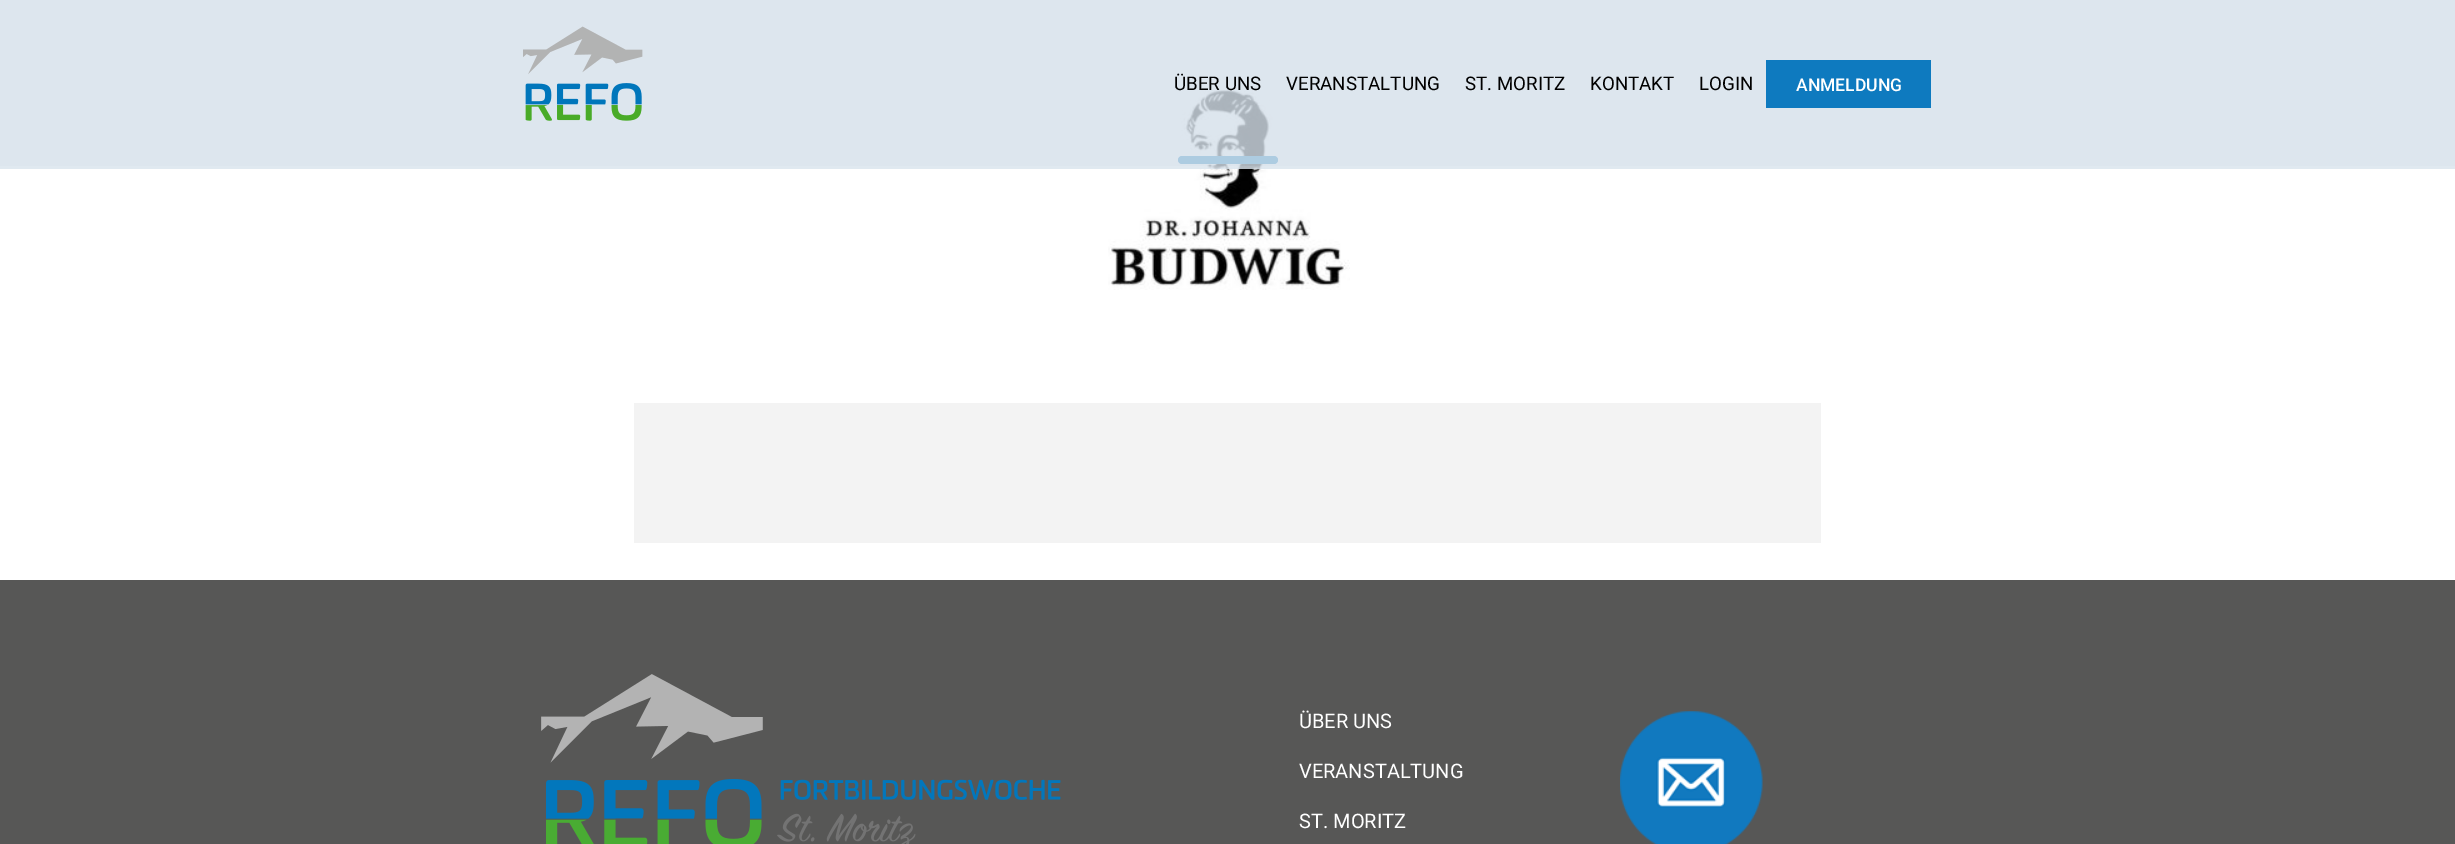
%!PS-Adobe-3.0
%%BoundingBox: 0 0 2455 844
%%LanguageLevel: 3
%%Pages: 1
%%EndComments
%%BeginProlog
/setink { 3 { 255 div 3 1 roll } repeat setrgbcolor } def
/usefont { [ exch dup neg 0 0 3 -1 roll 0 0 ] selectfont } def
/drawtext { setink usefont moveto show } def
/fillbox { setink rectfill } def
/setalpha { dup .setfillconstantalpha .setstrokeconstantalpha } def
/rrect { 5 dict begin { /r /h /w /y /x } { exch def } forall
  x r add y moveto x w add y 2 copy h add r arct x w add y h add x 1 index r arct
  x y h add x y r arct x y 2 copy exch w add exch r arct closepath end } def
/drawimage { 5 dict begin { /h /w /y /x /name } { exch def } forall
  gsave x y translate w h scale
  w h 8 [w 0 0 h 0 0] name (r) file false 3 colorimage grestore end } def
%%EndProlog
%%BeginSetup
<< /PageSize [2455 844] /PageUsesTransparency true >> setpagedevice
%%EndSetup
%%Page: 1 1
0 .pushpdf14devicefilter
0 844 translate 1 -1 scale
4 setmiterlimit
0 0 2455 844 255 255 255 fillbox
(assets/img2.rgb) 1108 89 242 201 drawimage
14 122 191 setink
1178 156 100 8 4 rrect fill
0.8 setalpha
0 0 2455 169 213 224 234 fillbox
0.1 setalpha
0 166 2455 3 255 255 255 fillbox
1 setalpha
(assets/img1.rgb) 523 26 120 95 drawimage
(ÜBER UNS) 1174 90 /Roboto-Regular 18.75 0 0 0 drawtext
(VERANSTALTUNG) 1286 90 /Roboto-Regular 18.75 0 0 0 drawtext
(ST. MORITZ) 1465 90 /Roboto-Regular 18.75 0 0 0 drawtext
(KONTAKT) 1590 90 /Roboto-Regular 18.75 0 0 0 drawtext
(LOGIN) 1699 90 /Roboto-Regular 18.75 0 0 0 drawtext
1766 60 165 48 14 122 191 fillbox
(ANMELDUNG) 1796 91 /Roboto-Medium 17.5 255 255 255 drawtext
634 403 1187 140 243 243 243 fillbox
0 580 2455 264 87 87 86 fillbox
(assets/img3.rgb) 541 674 520 170 drawimage
(ÜBER UNS) 1299 728 /Roboto-Regular 20 255 255 255 drawtext
(VERANSTALTUNG) 1299 778 /Roboto-Regular 20 255 255 255 drawtext
(ST. MORITZ) 1299 828 /Roboto-Regular 20 255 255 255 drawtext
(assets/img4.rgb) 1620 711 143 133 drawimage
.poppdf14devicefilter showpage
%%EOF
